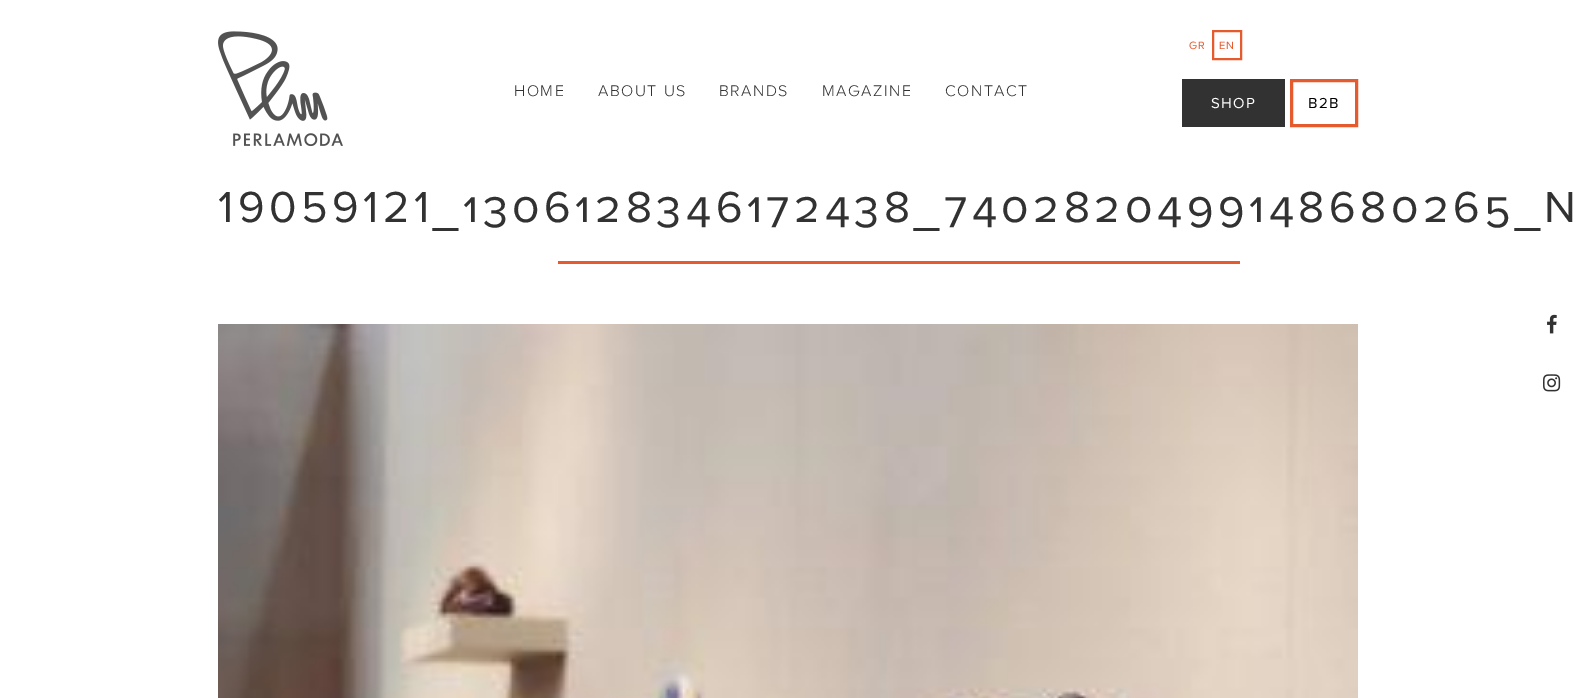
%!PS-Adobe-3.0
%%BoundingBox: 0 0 1576 698
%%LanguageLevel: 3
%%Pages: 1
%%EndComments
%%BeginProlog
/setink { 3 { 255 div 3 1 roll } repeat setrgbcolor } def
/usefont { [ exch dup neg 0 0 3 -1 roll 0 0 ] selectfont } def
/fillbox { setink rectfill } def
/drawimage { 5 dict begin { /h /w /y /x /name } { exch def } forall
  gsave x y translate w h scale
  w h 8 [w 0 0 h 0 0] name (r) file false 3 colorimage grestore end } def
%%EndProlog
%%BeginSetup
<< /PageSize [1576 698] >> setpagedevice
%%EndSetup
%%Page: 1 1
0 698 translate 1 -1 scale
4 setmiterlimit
0 0 1576 698 255 255 255 fillbox
(assets/img1.rgb) 218 31 125 115 drawimage
/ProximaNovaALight-Light 16 usefont
50 50 50 setink
514 96 moveto 1.5 0 (HOME) ashow
598 96 moveto 1.5 0 (ABOUT US) ashow
719 96 moveto 1.5 0 (BRANDS) ashow
822 96 moveto 1.5 0 (MAGAZINE) ashow
945 96 moveto 1.5 0 (CONTACT) ashow
/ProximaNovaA-Regular 11 usefont
229 91 45 setink
1189 49 moveto 1 0 (GR) ashow
2 setlinewidth
1213 31 28 28 rectstroke
1219 49 moveto 1 0 (EN) ashow
1182 79 103 48 50 50 50 fillbox
/ProximaNovaA-Regular 15 usefont
255 255 255 setink
1211 108 moveto 1.5 0 (SHOP) ashow
229 91 45 setink
3 setlinewidth
1291.5 80.5 65 45 rectstroke
0 0 0 setink
1308 108 moveto 1.5 0 (B2B) ashow
/ProximaNovaA-Regular 45 usefont
50 50 50 setink
218 222 moveto 4.5 0 (19059121) ashow
/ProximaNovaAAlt-Regular 45 usefont
463 222 moveto 4.5 0 (1306128346172438) ashow
944 222 moveto 4.5 0 (7402820499148680265) ashow
/ProximaNovaA-Regular 45 usefont
1544 222 moveto 4.5 0 (N) ashow
/LiberationSans-Regular 45 usefont
433 222 moveto 4.5 0 (_) ashow
914 222 moveto 4.5 0 (_) ashow
1515 222 moveto 4.5 0 (_) ashow
558 261 682 3 229 91 45 fillbox
(assets/img2.rgb) 218 324 1140 374 drawimage
(assets/img3.rgb) 1547 314 10 20 drawimage
(assets/img4.rgb) 1543 374 18 18 drawimage
showpage
%%EOF
